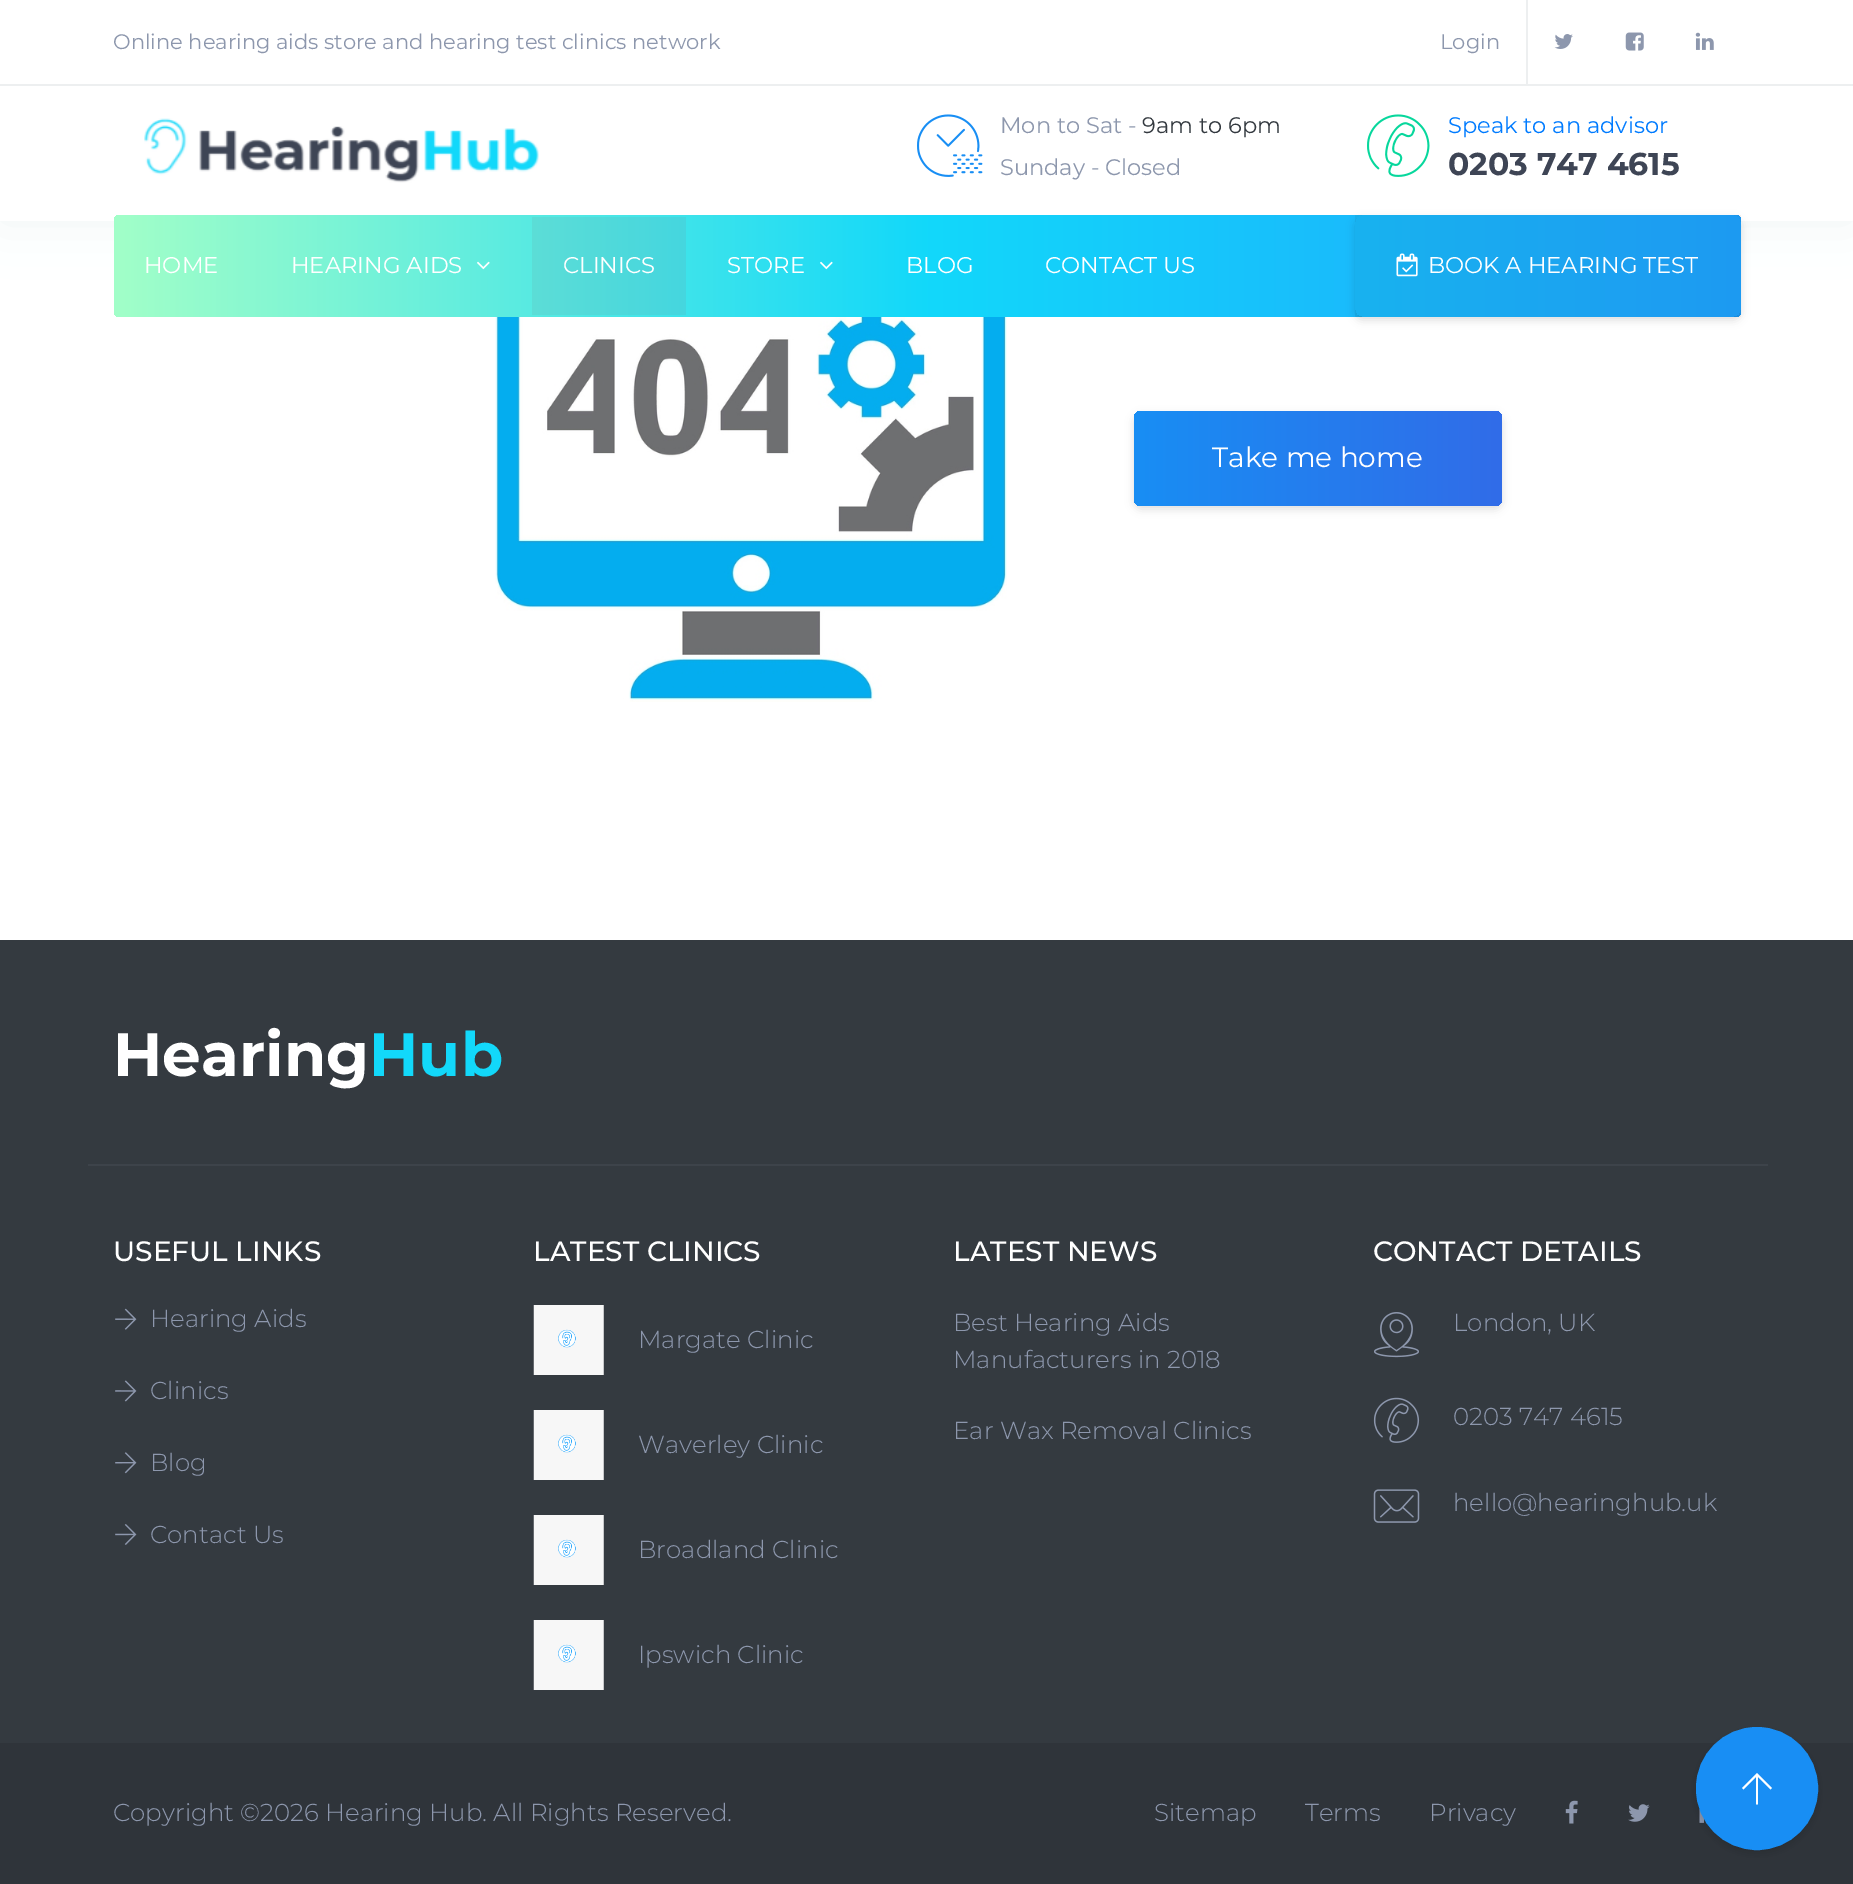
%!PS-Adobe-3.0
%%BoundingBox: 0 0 1853 1884
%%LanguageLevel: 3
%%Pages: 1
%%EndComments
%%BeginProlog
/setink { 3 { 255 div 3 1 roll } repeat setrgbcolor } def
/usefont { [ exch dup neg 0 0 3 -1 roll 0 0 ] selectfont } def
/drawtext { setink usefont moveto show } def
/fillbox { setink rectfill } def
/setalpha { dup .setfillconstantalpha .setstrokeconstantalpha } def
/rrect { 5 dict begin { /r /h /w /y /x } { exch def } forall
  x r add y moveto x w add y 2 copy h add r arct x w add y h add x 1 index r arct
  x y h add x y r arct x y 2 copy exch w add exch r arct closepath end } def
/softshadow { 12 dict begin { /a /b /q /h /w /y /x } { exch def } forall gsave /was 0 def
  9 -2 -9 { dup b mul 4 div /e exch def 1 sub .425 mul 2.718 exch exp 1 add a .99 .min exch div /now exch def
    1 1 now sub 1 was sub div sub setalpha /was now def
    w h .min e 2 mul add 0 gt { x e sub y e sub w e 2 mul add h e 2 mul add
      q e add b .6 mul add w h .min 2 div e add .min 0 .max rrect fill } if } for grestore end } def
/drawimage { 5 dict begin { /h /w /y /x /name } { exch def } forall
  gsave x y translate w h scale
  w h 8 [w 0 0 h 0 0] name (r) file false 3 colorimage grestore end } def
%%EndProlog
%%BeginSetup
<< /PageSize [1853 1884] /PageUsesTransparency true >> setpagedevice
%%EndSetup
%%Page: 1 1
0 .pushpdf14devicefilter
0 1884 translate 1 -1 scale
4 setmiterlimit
0 0 1853 1884 255 255 255 fillbox
115 128 157 setink
0 0 1853 221 0 26 0.1 softshadow
0 0 1853 221 255 255 255 fillbox
0 84 1853 2 237 239 240 fillbox
(Online hearing aids store and hearing test clinics network) 113 49 /Montserrat-Regular 21 141 151 173 drawtext
1526 0 2 84 237 239 240 fillbox
(Login) 1440 49 /Montserrat-Regular 21 141 151 173 drawtext
(assets/img1.rgb) 1554 34 19 15 drawimage
(assets/img2.rgb) 1625 32 19 19 drawimage
(assets/img3.rgb) 1695 32 19 18 drawimage
(assets/img4.rgb) 144 118 395 65 drawimage
(assets/img5.rgb) 917 114 66 63 drawimage
(Mon to Sat -) 1000 133 /Montserrat-Regular 22.5 141 151 173 drawtext
(9am to 6pm) 1142 133 /Montserrat-Regular 22.5 52 58 64 drawtext
(Sunday - Closed) 1000 175 /Montserrat-Regular 22.5 141 151 173 drawtext
(assets/img6.rgb) 1367 114 63 63 drawimage
(Speak to an advisor) 1448 133 /Montserrat-Regular 22.5 0 123 255 drawtext
(0203 747 4615) 1448 175 /Montserrat-Bold 31.5 62 69 85 drawtext
gsave 114 215 1627 102 5 rrect clip newpath
<< /ShadingType 2 /ColorSpace /DeviceRGB /Coords [114 266 1741 266] /Extend [true true] /Function << /FunctionType 3 /Domain [0 1] /Functions [<< /FunctionType 2 /Domain [0 1] /C0 [0.635 1 0.784] /C1 [0.071 0.847 0.98] /N 1 >> << /FunctionType 2 /Domain [0 1] /C0 [0.071 0.847 0.98] /C1 [0.122 0.635 1] /N 1 >>] /Bounds [0.5] /Encode [0 1 0 1] >> >> shfill grestore
(HOME) 144 273 /Montserrat-Regular 22.75 255 255 255 drawtext
(HEARING AIDS) 291 273 /Montserrat-Regular 22.75 255 255 255 drawtext
(assets/img7.rgb) 477 261 13 9 drawimage
0.13 setalpha
532 217 154 98 120 130 140 fillbox
1 setalpha
(CLINICS) 563 273 /Montserrat-Regular 22.75 255 255 255 drawtext
(STORE) 727 273 /Montserrat-Regular 22.75 255 255 255 drawtext
(assets/img8.rgb) 820 261 13 9 drawimage
(BLOG) 906 273 /Montserrat-Regular 22.75 255 255 255 drawtext
(CONTACT US) 1045 273 /Montserrat-Regular 22.75 255 255 255 drawtext
gsave
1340 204 moveto 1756 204 lineto 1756 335 lineto 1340 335 lineto closepath 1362 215 moveto 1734 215 lineto 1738 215 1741 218 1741 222 curveto 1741 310 lineto 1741 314 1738 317 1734 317 curveto 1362 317 lineto 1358 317 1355 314 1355 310 curveto 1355 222 lineto 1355 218 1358 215 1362 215 curveto closepath eoclip newpath
0 0 0 setink
1355 219 386 101 7 4.5 0.14 softshadow
grestore
0.05 setalpha
1355 215 386 102 0 0 0 fillbox
1 setalpha
(assets/img9.rgb) 1396 253 22 24 drawimage
(BOOK A HEARING TEST) 1428 273 /Montserrat-Regular 22.75 255 255 255 drawtext
(assets/img10.rgb) 495 317 512 385 drawimage
0 0 0 setink
1134 415 368 94 7 4.5 0.14 softshadow
gsave 1134 411 368 95 7 rrect clip newpath
<< /ShadingType 2 /ColorSpace /DeviceRGB /Coords [1134 459 1502 459] /Extend [true true] /Function << /FunctionType 2 /Domain [0 1] /C0 [0.094 0.557 0.957] /C1 [0.192 0.424 0.91] /N 1 >> >> shfill grestore
(Take me home) 1212 467 /Montserrat-Regular 28 255 255 255 drawtext
0 940 1853 803 52 58 64 fillbox
0 1743 1853 141 47 52 58 fillbox
(assets/img21.rgb) 1699 1809 8 14 drawimage
0 0 0 setink
1696 1731 122 122 61 4.5 0.14 softshadow
24 142 244 setink
1697 1728 120 121 60 rrect gsave fill grestore
2 setlinewidth
stroke
255 255 255 setink
1770.5 1789.5 moveto 1758 1777 lineto 1758 1804.5 lineto 1756 1804.5 lineto 1756 1777 lineto 1743.5 1789.5 lineto 1742 1788 lineto 1757 1773 lineto 1772 1788 lineto closepath fill
88 1164 1680 2 61 67 74 fillbox
(Hearing) 113 1076 /Montserrat-Bold 61.25 255 255 255 drawtext
(Hub) 369 1076 /Montserrat-Bold 61.25 18 216 250 drawtext
(USEFUL LINKS) 113 1261 /Montserrat-Medium 28 255 255 255 drawtext
(assets/img11.rgb) 115 1308 22 22 drawimage
(Hearing Aids) 150 1327 /Montserrat-Light 24.5 141 151 173 drawtext
(assets/img12.rgb) 115 1380 22 22 drawimage
(Clinics) 150 1399 /Montserrat-Light 24.5 141 151 173 drawtext
(assets/img13.rgb) 115 1452 22 22 drawimage
(Blog) 150 1471 /Montserrat-Light 24.5 141 151 173 drawtext
(assets/img14.rgb) 115 1524 22 21 drawimage
(Contact Us) 150 1543 /Montserrat-Light 24.5 141 151 173 drawtext
(LATEST CLINICS) 533 1261 /Montserrat-Medium 28 255 255 255 drawtext
(assets/img15.rgb) 533 1305 71 70 drawimage
(Margate Clinic) 638 1348 /Montserrat-Light 24.5 141 151 173 drawtext
(assets/img15.rgb) 533 1410 71 70 drawimage
(Waverley Clinic) 638 1453 /Montserrat-Light 24.5 141 151 173 drawtext
(assets/img15.rgb) 533 1515 71 70 drawimage
(Broadland Clinic) 638 1558 /Montserrat-Light 24.5 141 151 173 drawtext
(assets/img15.rgb) 533 1620 71 70 drawimage
(Ipswich Clinic) 638 1663 /Montserrat-Light 24.5 141 151 173 drawtext
(LATEST NEWS) 953 1261 /Montserrat-Medium 28 255 255 255 drawtext
(Best Hearing Aids) 953 1331 /Montserrat-Light 24.5 141 151 173 drawtext
(Manufacturers in 2018) 953 1368 /Montserrat-Light 24.5 141 151 173 drawtext
(Ear Wax Removal Clinics) 953 1439 /Montserrat-Light 24.5 141 151 173 drawtext
(CONTACT DETAILS) 1373 1261 /Montserrat-Medium 28 255 255 255 drawtext
(assets/img16.rgb) 1374 1312 45 46 drawimage
(London, UK) 1453 1331 /Montserrat-Light 24.5 141 151 173 drawtext
(assets/img17.rgb) 1373 1397 47 46 drawimage
(0203 747 4615) 1453 1425 /Montserrat-Light 24.5 141 151 173 drawtext
(assets/img18.rgb) 1373 1489 47 34 drawimage
(hello@hearinghub.uk) 1453 1511 /Montserrat-Light 24.5 141 151 173 drawtext
(Copyright ©2026 Hearing Hub. All Rights Reserved.) 113 1821 /Montserrat-Light 24.5 141 151 173 drawtext
(Sitemap) 1154 1821 /Montserrat-Light 24.5 141 151 173 drawtext
(Terms) 1305 1821 /Montserrat-Light 24.5 141 151 173 drawtext
(Privacy) 1429 1821 /Montserrat-Light 24.5 141 151 173 drawtext
(assets/img19.rgb) 1565 1800 13 24 drawimage
(assets/img20.rgb) 1628 1804 22 18 drawimage
.poppdf14devicefilter showpage
%%EOF
